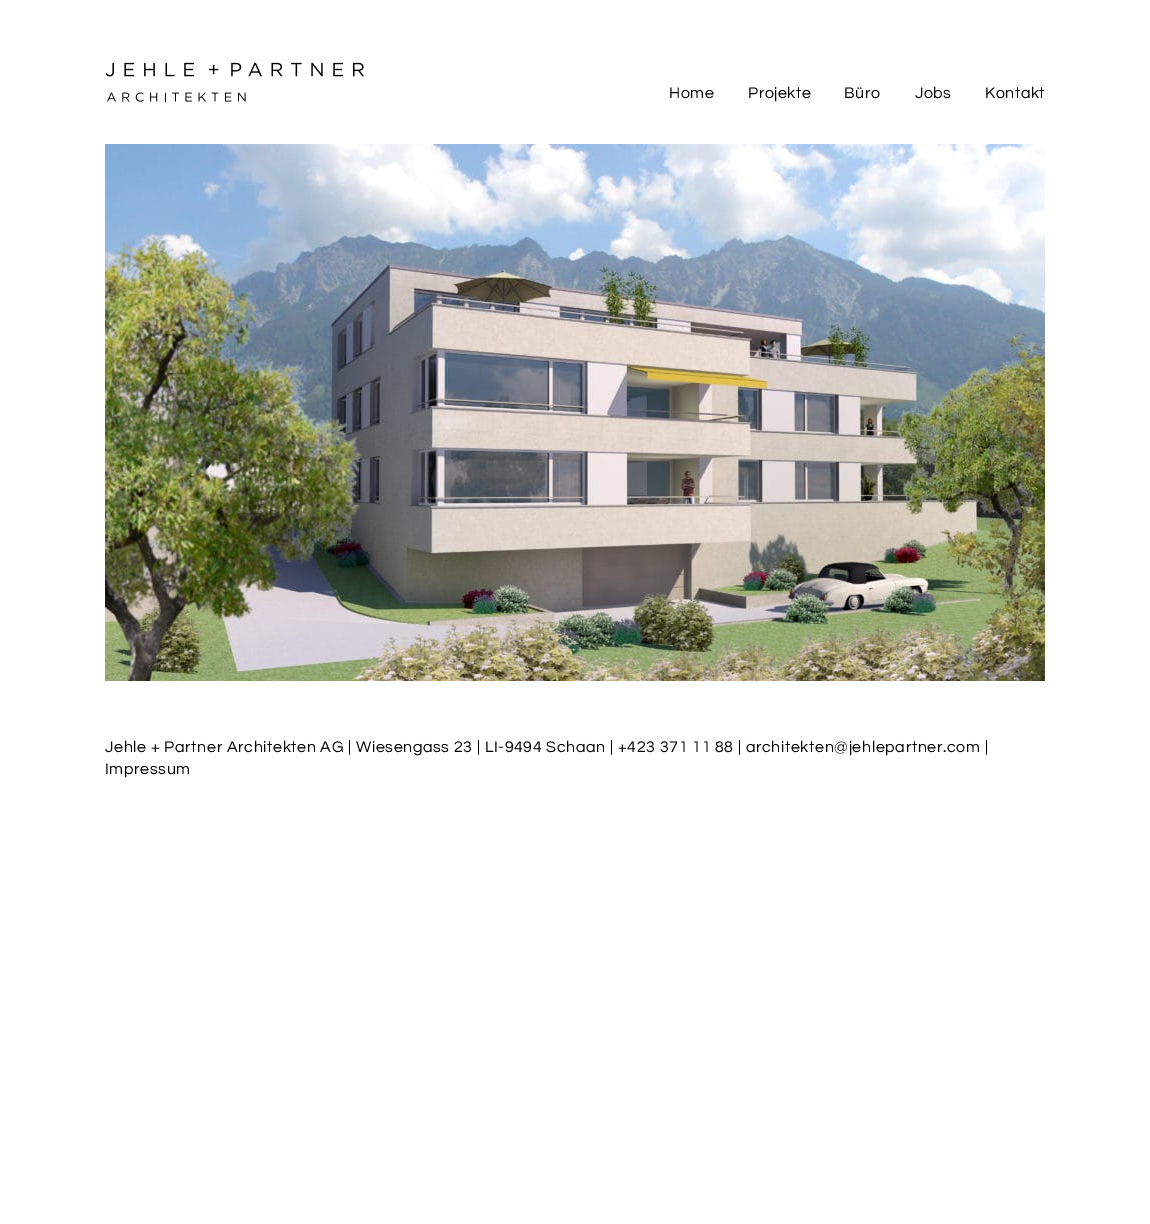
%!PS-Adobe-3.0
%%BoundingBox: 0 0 1150 1224
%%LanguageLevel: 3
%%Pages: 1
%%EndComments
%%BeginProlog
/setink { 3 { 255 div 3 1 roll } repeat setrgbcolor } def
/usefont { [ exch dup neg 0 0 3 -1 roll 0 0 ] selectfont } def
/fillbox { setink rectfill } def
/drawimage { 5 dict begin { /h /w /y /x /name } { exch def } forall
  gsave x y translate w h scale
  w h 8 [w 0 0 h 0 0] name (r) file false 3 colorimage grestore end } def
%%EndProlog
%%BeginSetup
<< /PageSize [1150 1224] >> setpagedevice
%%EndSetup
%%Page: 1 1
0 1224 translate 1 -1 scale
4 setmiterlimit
0 0 1150 1224 255 255 255 fillbox
(assets/img1.rgb) 105 62 259 40 drawimage
/Questrial-Regular 16 usefont
0 0 0 setink
669 98 moveto 0.5 0 (Home) ashow
748 98 moveto 0.5 0 (Projekte) ashow
844 98 moveto 0.5 0 (Büro) ashow
915 98 moveto 0.5 0 (Jobs) ashow
985 98 moveto 0.5 0 (Kontakt) ashow
(assets/img2.rgb) 105 144 940 537 drawimage
105 752 moveto 0.65 0 (Jehle + Partner Architekten AG | Wiesengass 23 | LI-9494 Schaan | +423 371 11 88 | architekten@jehlepartner.com |) ashow
105 774 moveto 0.65 0 (Impressum) ashow
showpage
%%EOF
